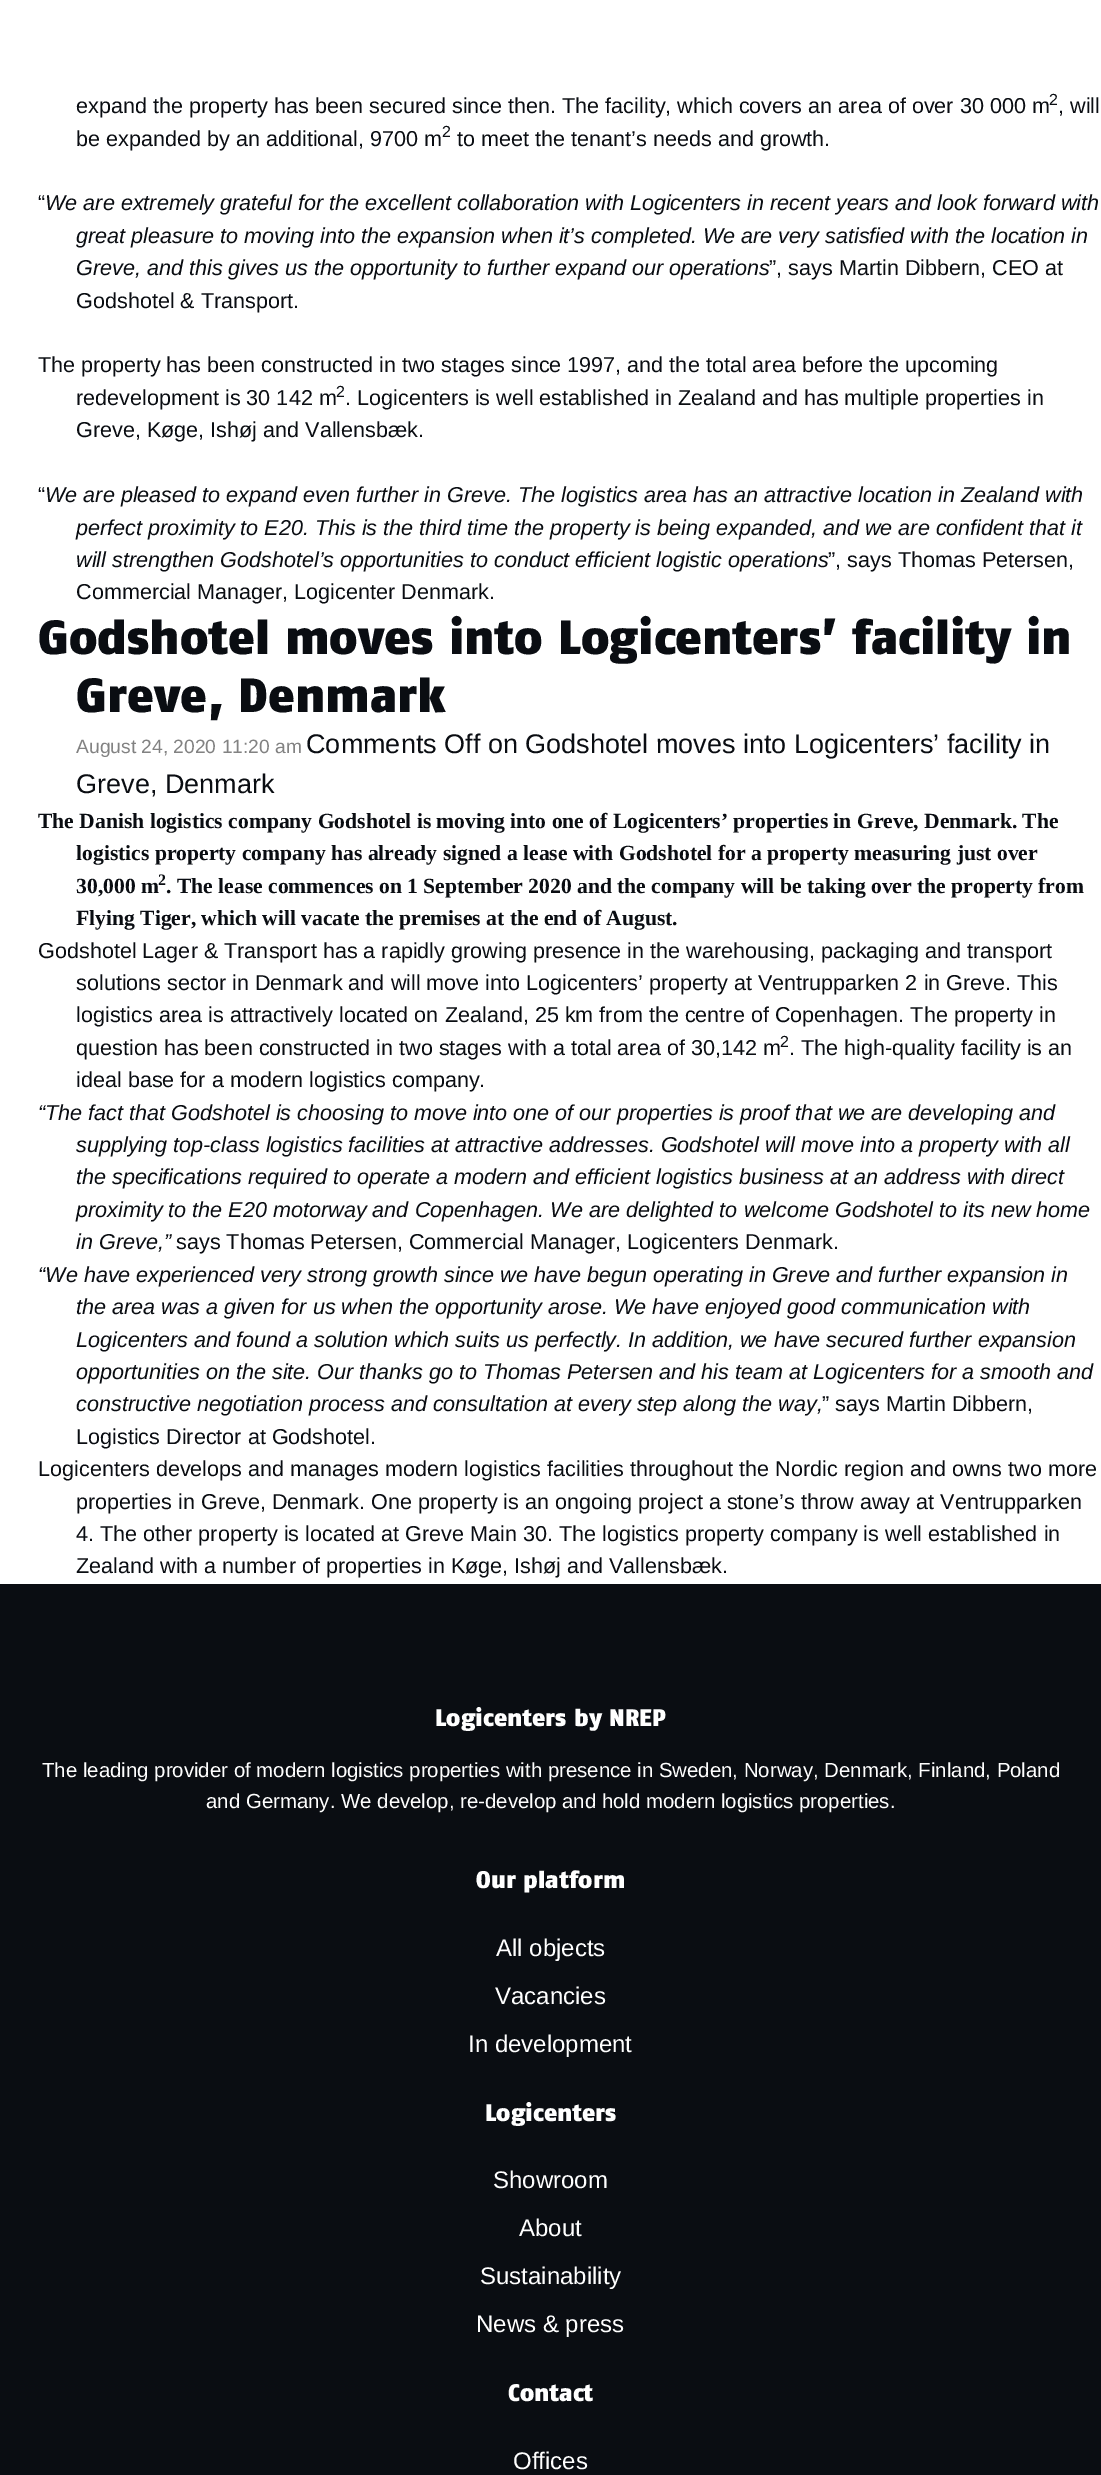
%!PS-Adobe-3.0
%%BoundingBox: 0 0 1101 2475
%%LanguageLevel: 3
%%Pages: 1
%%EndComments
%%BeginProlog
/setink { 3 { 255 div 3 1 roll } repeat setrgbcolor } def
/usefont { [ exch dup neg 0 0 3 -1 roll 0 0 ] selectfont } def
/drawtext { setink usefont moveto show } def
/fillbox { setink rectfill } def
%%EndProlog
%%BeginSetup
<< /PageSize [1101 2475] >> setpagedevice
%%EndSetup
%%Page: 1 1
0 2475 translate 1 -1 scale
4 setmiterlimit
0 0 1101 2475 255 255 255 fillbox
(expand the property has been secured since then. The facility, which covers an area of over 30 000 m) 76 113 /LiberationSans-Regular 21.6 10 13 18 drawtext
(2) 1049 105 /LiberationSans-Regular 16 10 13 18 drawtext
(, will) 1058 113 /LiberationSans-Regular 21.6 10 13 18 drawtext
(be expanded by an additional, 9700 m) 76 146 /LiberationSans-Regular 21.6 10 13 18 drawtext
(2) 442 137 /LiberationSans-Regular 16 10 13 18 drawtext
(to meet the tenant’s needs and growth.) 457 146 /LiberationSans-Regular 21.6 10 13 18 drawtext
(“) 38 210 /LiberationSans-Regular 21.6 10 13 18 drawtext
(We are extremely grateful for the excellent collaboration with Logicenters in recent years and look forward with) 45 210 /LiberationSans-Italic 21.6 10 13 18 drawtext
(great pleasure to moving into the expansion when it’s completed. We are very satisfied with the location in) 76 243 /LiberationSans-Italic 21.6 10 13 18 drawtext
(Greve, and this gives us the opportunity to further expand our operations) 76 275 /LiberationSans-Italic 21.6 10 13 18 drawtext
(”, says Martin Dibbern, CEO at) 769 275 /LiberationSans-Regular 21.6 10 13 18 drawtext
(Godshotel & Transport.) 76 308 /LiberationSans-Regular 21.6 10 13 18 drawtext
(The property has been constructed in two stages since 1997, and the total area before the upcoming) 38 372 /LiberationSans-Regular 21.6 10 13 18 drawtext
(redevelopment is 30 142 m) 76 405 /LiberationSans-Regular 21.6 10 13 18 drawtext
(2) 336 397 /LiberationSans-Regular 16 10 13 18 drawtext
(. Logicenters is well established in Zealand and has multiple properties in) 345 405 /LiberationSans-Regular 21.6 10 13 18 drawtext
(Greve, Køge, Ishøj and Vallensbæk.) 76 437 /LiberationSans-Regular 21.6 10 13 18 drawtext
(“) 38 502 /LiberationSans-Regular 21.6 10 13 18 drawtext
(We are pleased to expand even further in Greve. The logistics area has an attractive location in Zealand with) 45 502 /LiberationSans-Italic 21.6 10 13 18 drawtext
(perfect proximity to E20. This is the third time the property is being expanded, and we are confident that it) 76 535 /LiberationSans-Italic 21.6 10 13 18 drawtext
(will strengthen Godshotel’s opportunities to conduct efficient logistic operations) 76 567 /LiberationSans-Italic 21.6 10 13 18 drawtext
(”, says Thomas Petersen,) 828 567 /LiberationSans-Regular 21.6 10 13 18 drawtext
(Commercial Manager, Logicenter Denmark.) 76 599 /LiberationSans-Regular 21.6 10 13 18 drawtext
(Godshotel moves into Logicenters’ facility in) 38 654 /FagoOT-Black 48 10 13 18 drawtext
(Greve, Denmark) 76 712 /FagoOT-Black 48 10 13 18 drawtext
(August 24, 2020 11:20 am) 76 753 /LiberationSans-Regular 19.25 130 130 130 drawtext
(Comments Off on Godshotel moves into Logicenters’ facility in) 306 753 /LiberationSans-Regular 27 10 13 18 drawtext
(Greve, Denmark) 76 793 /LiberationSans-Regular 27 10 13 18 drawtext
(The Danish logistics company Godshotel is moving into one of Logicenters’ properties in Greve, Denmark. The) 38 828 /LiberationSerif-Bold 21.6 10 13 18 drawtext
(logistics property company has already signed a lease with Godshotel for a property measuring just over) 76 860 /LiberationSerif-Bold 21.6 10 13 18 drawtext
(30,000 m) 76 893 /LiberationSerif-Bold 21.6 10 13 18 drawtext
(2) 158 885 /LiberationSerif-Bold 16 10 13 18 drawtext
(. The lease commences on 1 September 2020 and the company will be taking over the property from) 166 893 /LiberationSerif-Bold 21.6 10 13 18 drawtext
(Flying Tiger, which will vacate the premises at the end of August.) 76 925 /LiberationSerif-Bold 21.6 10 13 18 drawtext
(Godshotel Lager & Transport has a rapidly growing presence in the warehousing, packaging and transport) 38 958 /LiberationSans-Regular 21.6 10 13 18 drawtext
(solutions sector in Denmark and will move into Logicenters’ property at Ventrupparken 2 in Greve. This) 76 990 /LiberationSans-Regular 21.6 10 13 18 drawtext
(logistics area is attractively located on Zealand, 25 km from the centre of Copenhagen. The property in) 76 1022 /LiberationSans-Regular 21.6 10 13 18 drawtext
(question has been constructed in two stages with a total area of 30,142 m) 76 1055 /LiberationSans-Regular 21.6 10 13 18 drawtext
(2) 780 1047 /LiberationSans-Regular 16 10 13 18 drawtext
(. The high-quality facility is an) 789 1055 /LiberationSans-Regular 21.6 10 13 18 drawtext
(ideal base for a modern logistics company.) 76 1087 /LiberationSans-Regular 21.6 10 13 18 drawtext
(“The fact that Godshotel is choosing to move into one of our properties is proof that we are developing and) 38 1120 /LiberationSans-Italic 21.6 10 13 18 drawtext
(supplying top-class logistics facilities at attractive addresses. Godshotel will move into a property with all) 76 1152 /LiberationSans-Italic 21.6 10 13 18 drawtext
(the specifications required to operate a modern and efficient logistics business at an address with direct) 76 1184 /LiberationSans-Italic 21.6 10 13 18 drawtext
(proximity to the E20 motorway and Copenhagen. We are delighted to welcome Godshotel to its new home) 76 1217 /LiberationSans-Italic 21.6 10 13 18 drawtext
(in Greve,”) 76 1249 /LiberationSans-Italic 21.6 10 13 18 drawtext
(says Thomas Petersen, Commercial Manager, Logicenters Denmark.) 176 1249 /LiberationSans-Regular 21.6 10 13 18 drawtext
(“We have experienced very strong growth since we have begun operating in Greve and further expansion in) 38 1282 /LiberationSans-Italic 21.6 10 13 18 drawtext
(the area was a given for us when the opportunity arose. We have enjoyed good communication with) 76 1314 /LiberationSans-Italic 21.6 10 13 18 drawtext
(Logicenters and found a solution which suits us perfectly. In addition, we have secured further expansion) 76 1347 /LiberationSans-Italic 21.6 10 13 18 drawtext
(opportunities on the site. Our thanks go to Thomas Petersen and his team at Logicenters for a smooth and) 76 1379 /LiberationSans-Italic 21.6 10 13 18 drawtext
(constructive negotiation process and consultation at every step along the way,) 76 1411 /LiberationSans-Italic 21.6 10 13 18 drawtext
(” says Martin Dibbern,) 822 1411 /LiberationSans-Regular 21.6 10 13 18 drawtext
(Logistics Director at Godshotel.) 76 1444 /LiberationSans-Regular 21.6 10 13 18 drawtext
(Logicenters develops and manages modern logistics facilities throughout the Nordic region and owns two more) 38 1476 /LiberationSans-Regular 21.6 10 13 18 drawtext
(properties in Greve, Denmark. One property is an ongoing project a stone’s throw away at Ventrupparken) 76 1509 /LiberationSans-Regular 21.6 10 13 18 drawtext
(4. The other property is located at Greve Main 30. The logistics property company is well established in) 76 1541 /LiberationSans-Regular 21.6 10 13 18 drawtext
(Zealand with a number of properties in Køge, Ishøj and Vallensbæk.) 76 1573 /LiberationSans-Regular 21.6 10 13 18 drawtext
0 1584 1101 891 10 13 18 fillbox
(Logicenters by NREP) 435 1726 /FagoOT-Black 24 255 255 255 drawtext
(The leading provider of modern logistics properties with presence in Sweden, Norway, Denmark, Finland, Poland) 42 1777 /LiberationSans-Regular 20.4 255 255 255 drawtext
(and Germany. We develop, re-develop and hold modern logistics properties.) 206 1808 /LiberationSans-Regular 20.4 255 255 255 drawtext
(Our platform) 476 1888 /FagoOT-Black 24 255 255 255 drawtext
(All objects) 496 1956 /LiberationSans-Regular 24 255 255 255 drawtext
(Vacancies) 495 2004 /LiberationSans-Regular 24 255 255 255 drawtext
(In development) 468 2052 /LiberationSans-Regular 24 255 255 255 drawtext
(Logicenters) 485 2121 /FagoOT-Black 24 255 255 255 drawtext
(Showroom) 493 2188 /LiberationSans-Regular 24 255 255 255 drawtext
(About) 519 2236 /LiberationSans-Regular 24 255 255 255 drawtext
(Sustainability) 480 2284 /LiberationSans-Regular 24 255 255 255 drawtext
(News & press) 476 2332 /LiberationSans-Regular 24 255 255 255 drawtext
(Contact) 508 2401 /FagoOT-Black 24 255 255 255 drawtext
(Offices) 513 2469 /LiberationSans-Regular 24 255 255 255 drawtext
showpage
%%EOF
